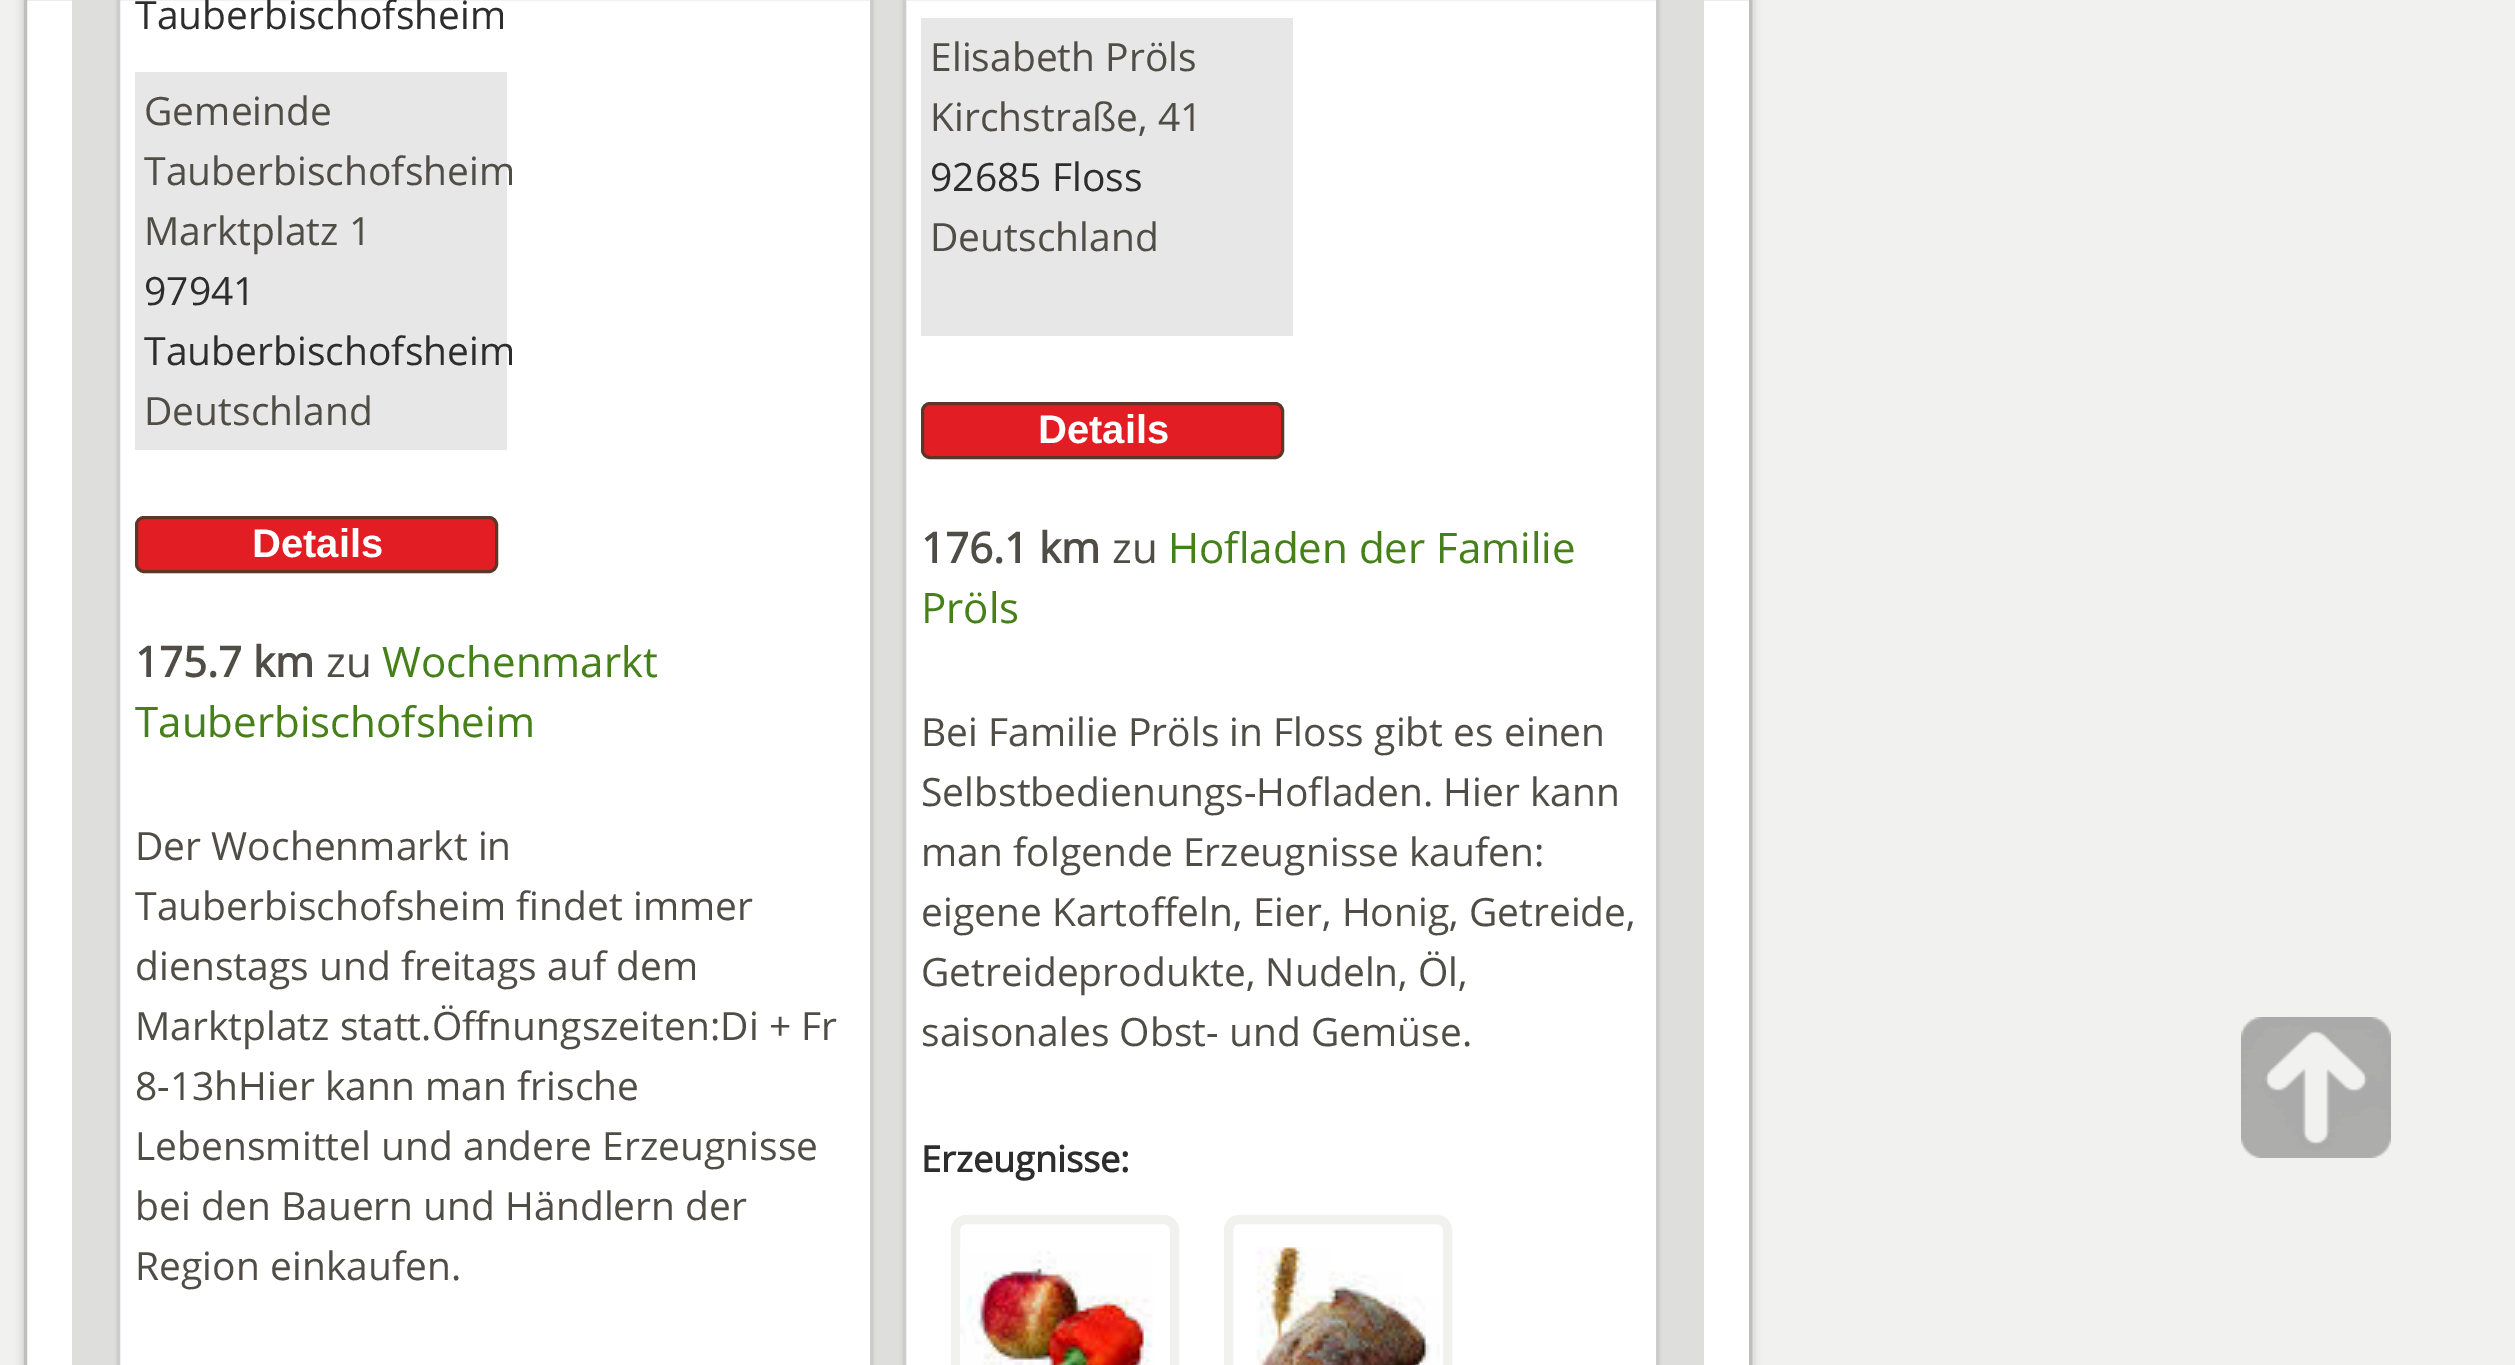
%!PS-Adobe-3.0
%%BoundingBox: 0 0 2515 1365
%%LanguageLevel: 3
%%Pages: 1
%%EndComments
%%BeginProlog
/setink { 3 { 255 div 3 1 roll } repeat setrgbcolor } def
/usefont { [ exch dup neg 0 0 3 -1 roll 0 0 ] selectfont } def
/drawtext { setink usefont moveto show } def
/fillbox { setink rectfill } def
/setalpha { dup .setfillconstantalpha .setstrokeconstantalpha } def
/rrect { 5 dict begin { /r /h /w /y /x } { exch def } forall
  x r add y moveto x w add y 2 copy h add r arct x w add y h add x 1 index r arct
  x y h add x y r arct x y 2 copy exch w add exch r arct closepath end } def
/softshadow { 12 dict begin { /a /b /q /h /w /y /x } { exch def } forall gsave /was 0 def
  9 -2 -9 { dup b mul 4 div /e exch def 1 sub .425 mul 2.718 exch exp 1 add a .99 .min exch div /now exch def
    1 1 now sub 1 was sub div sub setalpha /was now def
    w h .min e 2 mul add 0 gt { x e sub y e sub w e 2 mul add h e 2 mul add
      q e add b .6 mul add w h .min 2 div e add .min 0 .max rrect fill } if } for grestore end } def
/drawimage { 5 dict begin { /h /w /y /x /name } { exch def } forall
  gsave x y translate w h scale
  w h 8 [w 0 0 h 0 0] name (r) file false 3 colorimage grestore end } def
%%EndProlog
%%BeginSetup
<< /PageSize [2515 1365] /PageUsesTransparency true >> setpagedevice
%%EndSetup
%%Page: 1 1
0 .pushpdf14devicefilter
0 1365 translate 1 -1 scale
4 setmiterlimit
0 0 2515 1365 241 241 240 fillbox
192 191 189 setink
24 -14 1728 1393 0 4.5 1 softshadow
255 255 255 setink
25.5 -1.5 moveto 1750.5 -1.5 lineto 1750.5 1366.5 lineto 25.5 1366.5 lineto closepath gsave fill grestore
192 191 189 setink
3 setlinewidth
stroke
72 0 1632 1365 222 222 221 fillbox
0 0 0 setink
117 -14 756 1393 9 1.5 0.1 softshadow
255 255 255 setink
118.5 -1.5 moveto 871.5 -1.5 lineto 871.5 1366.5 lineto 118.5 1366.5 lineto closepath gsave fill grestore
204 204 204 setink
stroke
(Tauberbischofsheim) 135 29 /OpenSans-Regular 39 45 45 45 drawtext
135 72 372 378 232 231 231 fillbox
(Gemeinde) 144 125 /OpenSans-Regular 39 80 77 70 drawtext
(Tauberbischofsheim) 144 185 /OpenSans-Regular 39 80 77 70 drawtext
(Marktplatz 1) 144 245 /OpenSans-Regular 39 80 77 70 drawtext
(97941) 144 305 /OpenSans-Regular 39 45 45 45 drawtext
(Tauberbischofsheim) 144 365 /OpenSans-Regular 39 45 45 45 drawtext
(Deutschland) 144 425 /OpenSans-Regular 39 80 77 70 drawtext
226 30 36 setink
136.5 517.5 360 54 7.5 rrect gsave fill grestore
92 55 39 setink
stroke
(Details) 252 557 /LiberationSans-Bold 40 255 255 255 drawtext
(175.7 km) 135 677 /OpenSans-Bold 42 80 77 70 drawtext
(zu) 326 677 /OpenSans-Regular 42 80 77 70 drawtext
(Wochenmarkt) 382 677 /OpenSans-Regular 42 69 128 25 drawtext
(Tauberbischofsheim) 135 737 /OpenSans-Regular 42 69 128 25 drawtext
(Der Wochenmarkt in) 135 860 /OpenSans-Regular 39 80 77 70 drawtext
(Tauberbischofsheim findet immer) 135 920 /OpenSans-Regular 39 80 77 70 drawtext
(dienstags und freitags auf dem) 135 980 /OpenSans-Regular 39 80 77 70 drawtext
(Marktplatz statt.Öffnungszeiten:Di + Fr) 135 1040 /OpenSans-Regular 39 80 77 70 drawtext
(8-13hHier kann man frische) 135 1100 /OpenSans-Regular 39 80 77 70 drawtext
(Lebensmittel und andere Erzeugnisse) 135 1160 /OpenSans-Regular 39 80 77 70 drawtext
(bei den Bauern und Händlern der) 135 1220 /OpenSans-Regular 39 80 77 70 drawtext
(Region einkaufen.) 135 1280 /OpenSans-Regular 39 80 77 70 drawtext
0 0 0 setink
903 -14 756 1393 9 1.5 0.1 softshadow
255 255 255 setink
904.5 -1.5 moveto 1657.5 -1.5 lineto 1657.5 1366.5 lineto 904.5 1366.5 lineto closepath gsave fill grestore
204 204 204 setink
stroke
921 18 372 318 232 231 231 fillbox
(Elisabeth Pröls) 930 71 /OpenSans-Regular 39 80 77 70 drawtext
(Kirchstraße, 41) 930 131 /OpenSans-Regular 39 80 77 70 drawtext
(92685 Floss) 930 191 /OpenSans-Regular 39 45 45 45 drawtext
(Deutschland) 930 251 /OpenSans-Regular 39 80 77 70 drawtext
226 30 36 setink
922.5 403.5 360 54 7.5 rrect gsave fill grestore
92 55 39 setink
stroke
(Details) 1038 443 /LiberationSans-Bold 40 255 255 255 drawtext
(176.1 km) 921 563 /OpenSans-Bold 42 80 77 70 drawtext
(zu) 1112 563 /OpenSans-Regular 42 80 77 70 drawtext
(Hofladen der Familie) 1168 563 /OpenSans-Regular 42 69 128 25 drawtext
(Pröls) 921 623 /OpenSans-Regular 42 69 128 25 drawtext
(Bei Familie Pröls in Floss gibt es einen) 921 746 /OpenSans-Regular 39 80 77 70 drawtext
(Selbstbedienungs-Hofladen. Hier kann) 921 806 /OpenSans-Regular 39 80 77 70 drawtext
(man folgende Erzeugnisse kaufen:) 921 866 /OpenSans-Regular 39 80 77 70 drawtext
(eigene Kartoffeln, Eier, Honig, Getreide,) 921 926 /OpenSans-Regular 39 80 77 70 drawtext
(Getreideprodukte, Nudeln, Öl,) 921 986 /OpenSans-Regular 39 80 77 70 drawtext
(saisonales Obst- und Gemüse.) 921 1046 /OpenSans-Regular 39 80 77 70 drawtext
(Erzeugnisse:) 921 1172 /OpenSans-Bold 36 45 45 45 drawtext
241 241 240 setink
9 setlinewidth
955.5 1219.5 219 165 10.5 rrect stroke
(assets/img1.rgb) 960 1250 193 115 drawimage
1228.5 1219.5 219 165 10.5 rrect stroke
(assets/img2.rgb) 1256 1247 184 118 drawimage
(assets/img3.rgb) 2241 1017 150 141 drawimage
.poppdf14devicefilter showpage
%%EOF
